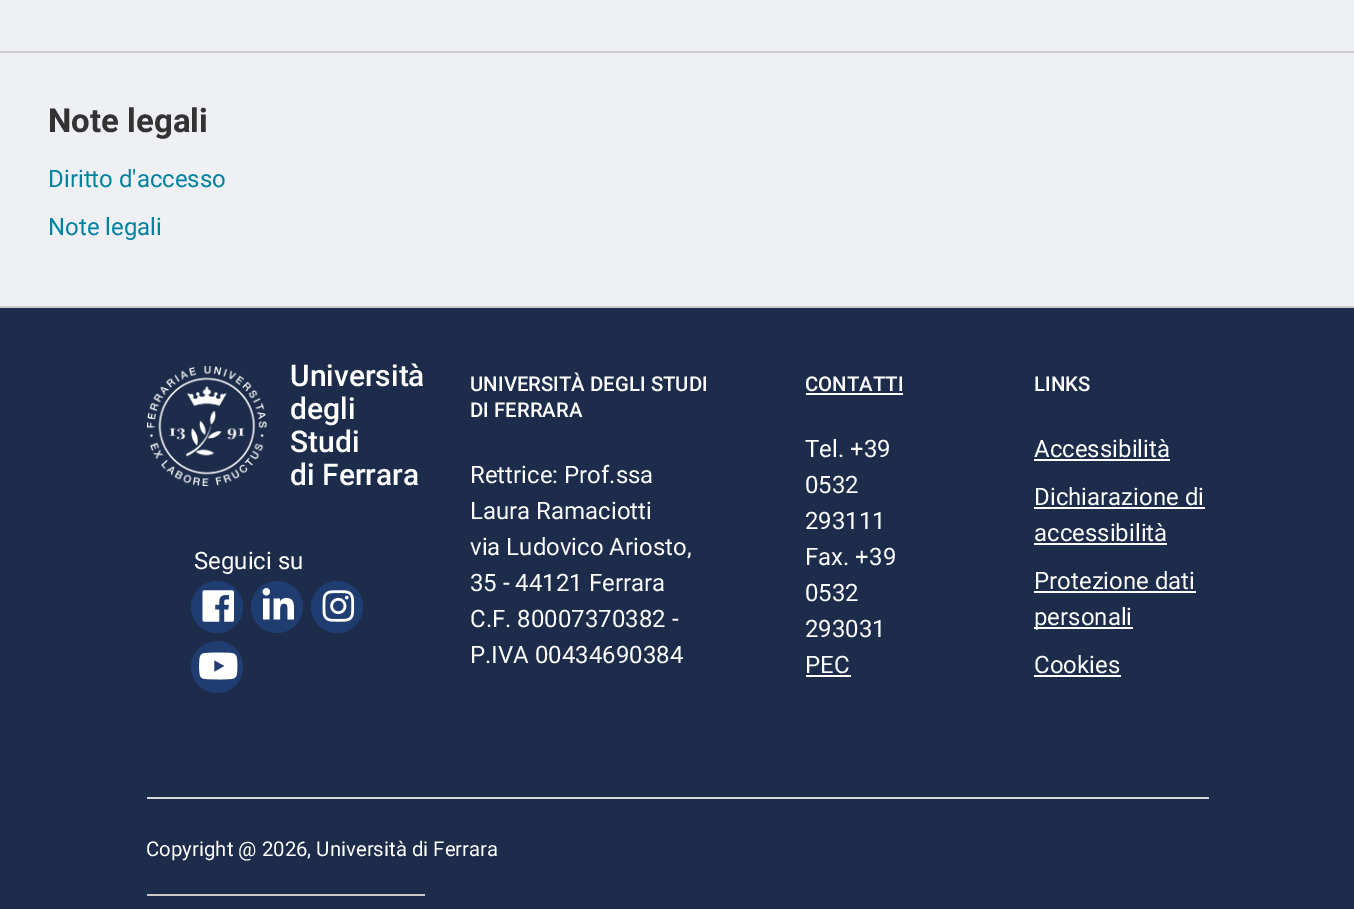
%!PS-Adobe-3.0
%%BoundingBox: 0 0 1354 909
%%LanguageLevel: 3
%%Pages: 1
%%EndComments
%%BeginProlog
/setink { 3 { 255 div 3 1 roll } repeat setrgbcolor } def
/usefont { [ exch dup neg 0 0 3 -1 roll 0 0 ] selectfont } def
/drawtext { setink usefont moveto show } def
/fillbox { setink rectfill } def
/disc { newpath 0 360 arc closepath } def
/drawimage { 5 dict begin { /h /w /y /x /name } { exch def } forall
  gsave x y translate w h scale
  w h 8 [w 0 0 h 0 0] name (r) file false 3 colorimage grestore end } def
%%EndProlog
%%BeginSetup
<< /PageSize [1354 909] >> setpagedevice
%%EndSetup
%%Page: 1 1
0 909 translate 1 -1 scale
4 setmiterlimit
0 0 1354 909 238 240 244 fillbox
0 51 1354 2 204 204 204 fillbox
0 306 1354 2 204 204 204 fillbox
(Note legali) 48 132 /Roboto-Bold 33 51 51 51 drawtext
(Diritto d'accesso) 48 187 /Roboto-Regular 24 0 129 159 drawtext
(Note legali) 48 235 /Roboto-Regular 24 0 129 159 drawtext
0 308 1354 601 28 44 74 fillbox
(assets/img1.rgb) 147 366 120 120 drawimage
(Università) 290 386 /Roboto-Medium 30 255 255 255 drawtext
(degli) 290 419 /Roboto-Medium 30 255 255 255 drawtext
(Studi) 290 452 /Roboto-Medium 30 255 255 255 drawtext
(di Ferrara) 290 485 /Roboto-Medium 30 255 255 255 drawtext
147 894 278 2 204 204 204 fillbox
(Seguici su) 194 569 /Roboto-Regular 24 255 255 255 drawtext
32 61 113 setink
217 607 26 disc fill
(assets/img2.rgb) 202 590 32 32 drawimage
277 607 26 disc fill
(assets/img3.rgb) 262 588 32 32 drawimage
337 607 26 disc fill
(assets/img4.rgb) 322 590 33 32 drawimage
217 667 26 disc fill
(assets/img5.rgb) 199 652 39 28 drawimage
(UNIVERSITÀ DEGLI STUDI) 470 391 /Roboto-Medium 20.4 255 255 255 drawtext
(DI FERRARA) 470 417 /Roboto-Medium 20.4 255 255 255 drawtext
(Rettrice: Prof.ssa) 470 483 /Roboto-Regular 24 255 255 255 drawtext
(Laura Ramaciotti) 470 519 /Roboto-Regular 24 255 255 255 drawtext
(via Ludovico Ariosto,) 470 555 /Roboto-Regular 24 255 255 255 drawtext
(35 - 44121 Ferrara) 470 591 /Roboto-Regular 24 255 255 255 drawtext
(C.F. 80007370382 -) 470 627 /Roboto-Regular 24 255 255 255 drawtext
(P.IVA 00434690384) 470 663 /Roboto-Regular 24 255 255 255 drawtext
(CONTATTI) 805 391 /Roboto-Medium 20.4 255 255 255 drawtext
806 393 97 2 255 255 255 fillbox
(Tel. +39) 805 457 /Roboto-Regular 24 255 255 255 drawtext
(0532) 805 493 /Roboto-Regular 24 255 255 255 drawtext
(293111) 805 529 /Roboto-Regular 24 255 255 255 drawtext
(Fax. +39) 805 565 /Roboto-Regular 24 255 255 255 drawtext
(0532) 805 601 /Roboto-Regular 24 255 255 255 drawtext
(293031) 805 637 /Roboto-Regular 24 255 255 255 drawtext
(PEC) 805 673 /Roboto-Regular 24 255 255 255 drawtext
806 675 45 2 255 255 255 fillbox
(LINKS) 1034 391 /Roboto-Medium 20.4 255 255 255 drawtext
(Accessibilità) 1034 457 /Roboto-Regular 24 255 255 255 drawtext
1034 459 136 2 255 255 255 fillbox
(Dichiarazione di) 1034 505 /Roboto-Regular 24 255 255 255 drawtext
1034 507 171 2 255 255 255 fillbox
(accessibilità) 1034 541 /Roboto-Regular 24 255 255 255 drawtext
1034 543 133 2 255 255 255 fillbox
(Protezione dati) 1034 589 /Roboto-Regular 24 255 255 255 drawtext
1034 591 162 2 255 255 255 fillbox
1034 627 99 2 255 255 255 fillbox
(personali) 1034 625 /Roboto-Regular 24 255 255 255 drawtext
(Cookies) 1034 673 /Roboto-Regular 24 255 255 255 drawtext
1034 675 87 2 255 255 255 fillbox
147 797 1062 2 216 216 216 fillbox
(Copyright @ 2026, Università di Ferrara) 146 856 /Roboto-Regular 20.4 255 255 255 drawtext
showpage
%%EOF
